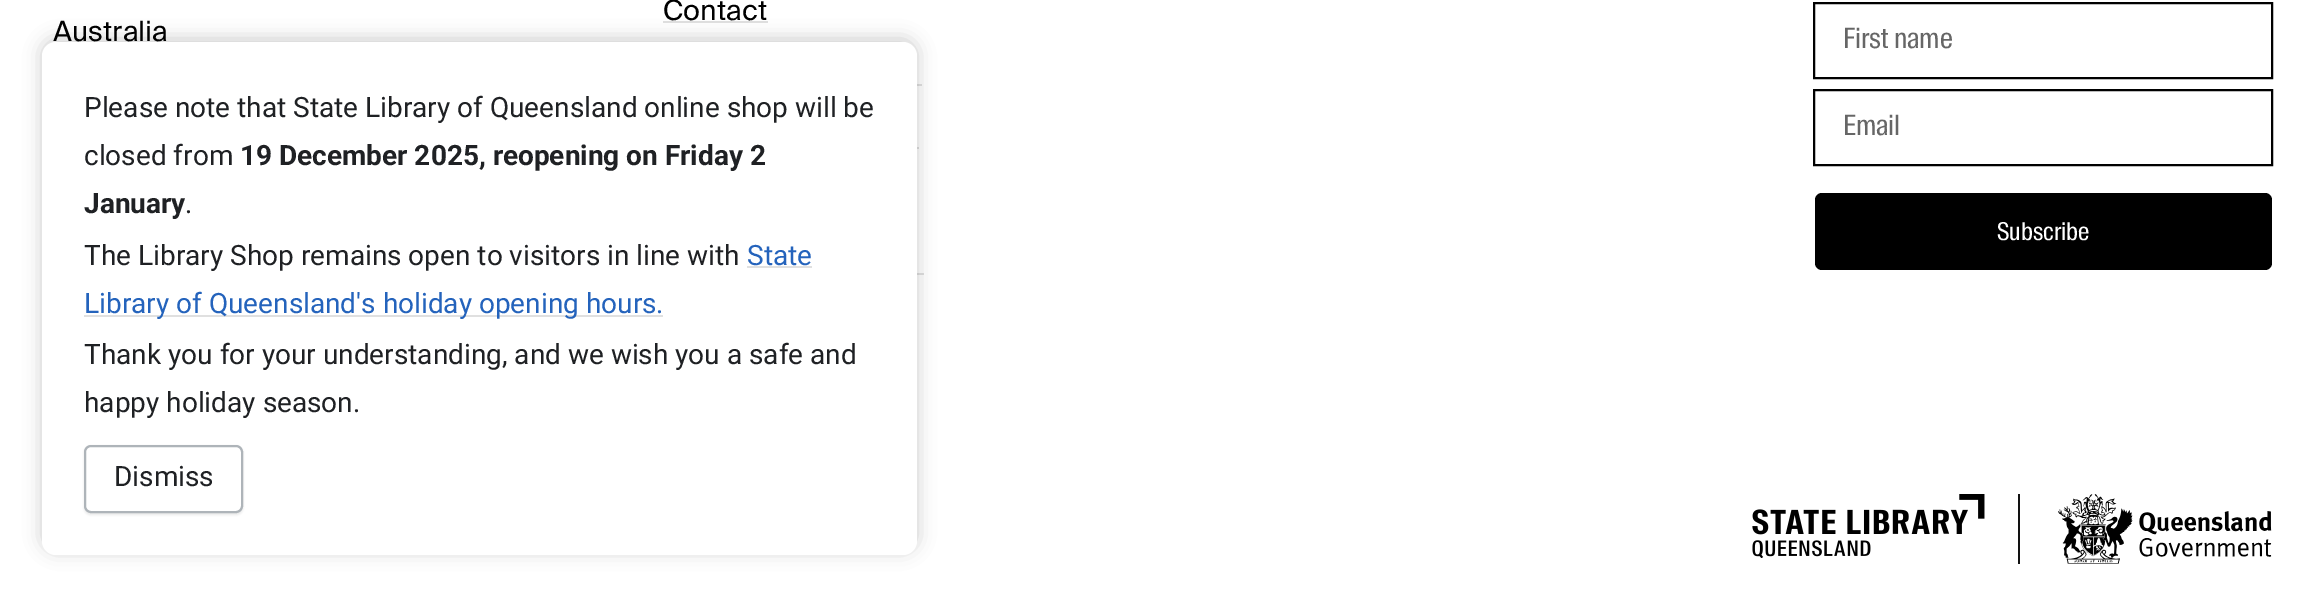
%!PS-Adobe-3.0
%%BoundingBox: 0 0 2323 599
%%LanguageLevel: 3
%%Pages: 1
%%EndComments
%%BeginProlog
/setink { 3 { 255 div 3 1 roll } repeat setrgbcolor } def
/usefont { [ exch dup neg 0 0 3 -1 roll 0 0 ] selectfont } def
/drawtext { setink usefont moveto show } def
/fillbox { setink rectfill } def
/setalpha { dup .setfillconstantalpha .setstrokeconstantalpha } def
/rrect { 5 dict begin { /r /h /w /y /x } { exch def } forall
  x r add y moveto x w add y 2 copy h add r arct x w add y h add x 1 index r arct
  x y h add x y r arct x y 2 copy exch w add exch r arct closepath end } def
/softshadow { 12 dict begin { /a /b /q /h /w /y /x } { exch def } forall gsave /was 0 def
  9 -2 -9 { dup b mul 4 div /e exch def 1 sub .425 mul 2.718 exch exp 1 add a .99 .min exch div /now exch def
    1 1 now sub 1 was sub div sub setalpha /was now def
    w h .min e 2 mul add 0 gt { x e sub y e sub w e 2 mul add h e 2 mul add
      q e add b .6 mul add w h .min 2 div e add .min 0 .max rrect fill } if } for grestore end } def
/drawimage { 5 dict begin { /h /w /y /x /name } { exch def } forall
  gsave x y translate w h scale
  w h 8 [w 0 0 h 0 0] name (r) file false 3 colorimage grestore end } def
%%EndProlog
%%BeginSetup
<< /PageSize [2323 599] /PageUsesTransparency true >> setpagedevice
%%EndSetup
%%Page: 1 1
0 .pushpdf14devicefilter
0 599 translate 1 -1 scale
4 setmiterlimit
0 0 2323 599 255 255 255 fillbox
(Contact) 663 20 /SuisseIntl-Regular 28 0 0 0 drawtext
663 21 105 2 224 224 224 fillbox
917 84 5 2 224 224 224 fillbox
917 147 2 2 224 224 224 fillbox
917 273 7 2 224 224 224 fillbox
(Australia) 53 41 /SuisseIntl-Regular 28 0 0 0 drawtext
2 setlinewidth
1814 3 458 75 rectstroke
(First name) 1843 48 /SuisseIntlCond-Regular 28 102 102 102 drawtext
0 0 0 setink
1814 90 458 75 rectstroke
(Email) 1843 135 /SuisseIntlCond-Regular 28 102 102 102 drawtext
0 0 0 setink
1815 193 457 77 7 rrect fill
(Subscribe) 1997 240 /SuisseIntlCond-Regular 24.5 255 255 255 drawtext
(assets/img1.rgb) 1752 494 233 64 drawimage
2018 494 2 70 18 18 18 fillbox
(assets/img2.rgb) 2058 494 214 70 drawimage
0 0 0 setink
42 39 875 512 14 9 0.2 softshadow
255 255 255 setink
42 42 875 513 14 rrect fill
(Please note that State Library of Queensland online shop will be) 84 117 /Roboto-Regular 28 31 33 36 drawtext
(closed from) 84 165 /Roboto-Regular 28 31 33 36 drawtext
(19 December 2025, reopening on Friday 2) 240 165 /Roboto-Bold 28 31 33 36 drawtext
(January) 84 213 /Roboto-Bold 28 31 33 36 drawtext
(.) 185 213 /Roboto-Regular 28 31 33 36 drawtext
(The Library Shop remains open to visitors in line with) 84 265 /Roboto-Regular 28 31 33 36 drawtext
(State) 747 265 /Roboto-Regular 28 36 99 188 drawtext
747 266 65 2 224 224 224 fillbox
84 315 579 2 224 224 224 fillbox
(Library of Queensland's holiday opening hours.) 84 313 /Roboto-Regular 28 36 99 188 drawtext
(Thank you for your understanding, and we wish you a safe and) 84 364 /Roboto-Regular 28 31 33 36 drawtext
(happy holiday season.) 84 412 /Roboto-Regular 28 31 33 36 drawtext
84 446 159 69 7 1 0.1 softshadow
255 255 255 setink
85 446 157 66 6 rrect gsave fill grestore
174 180 185 setink
stroke
(Dismiss) 114 486 /Roboto-Regular 28 31 33 36 drawtext
.poppdf14devicefilter showpage
%%EOF
